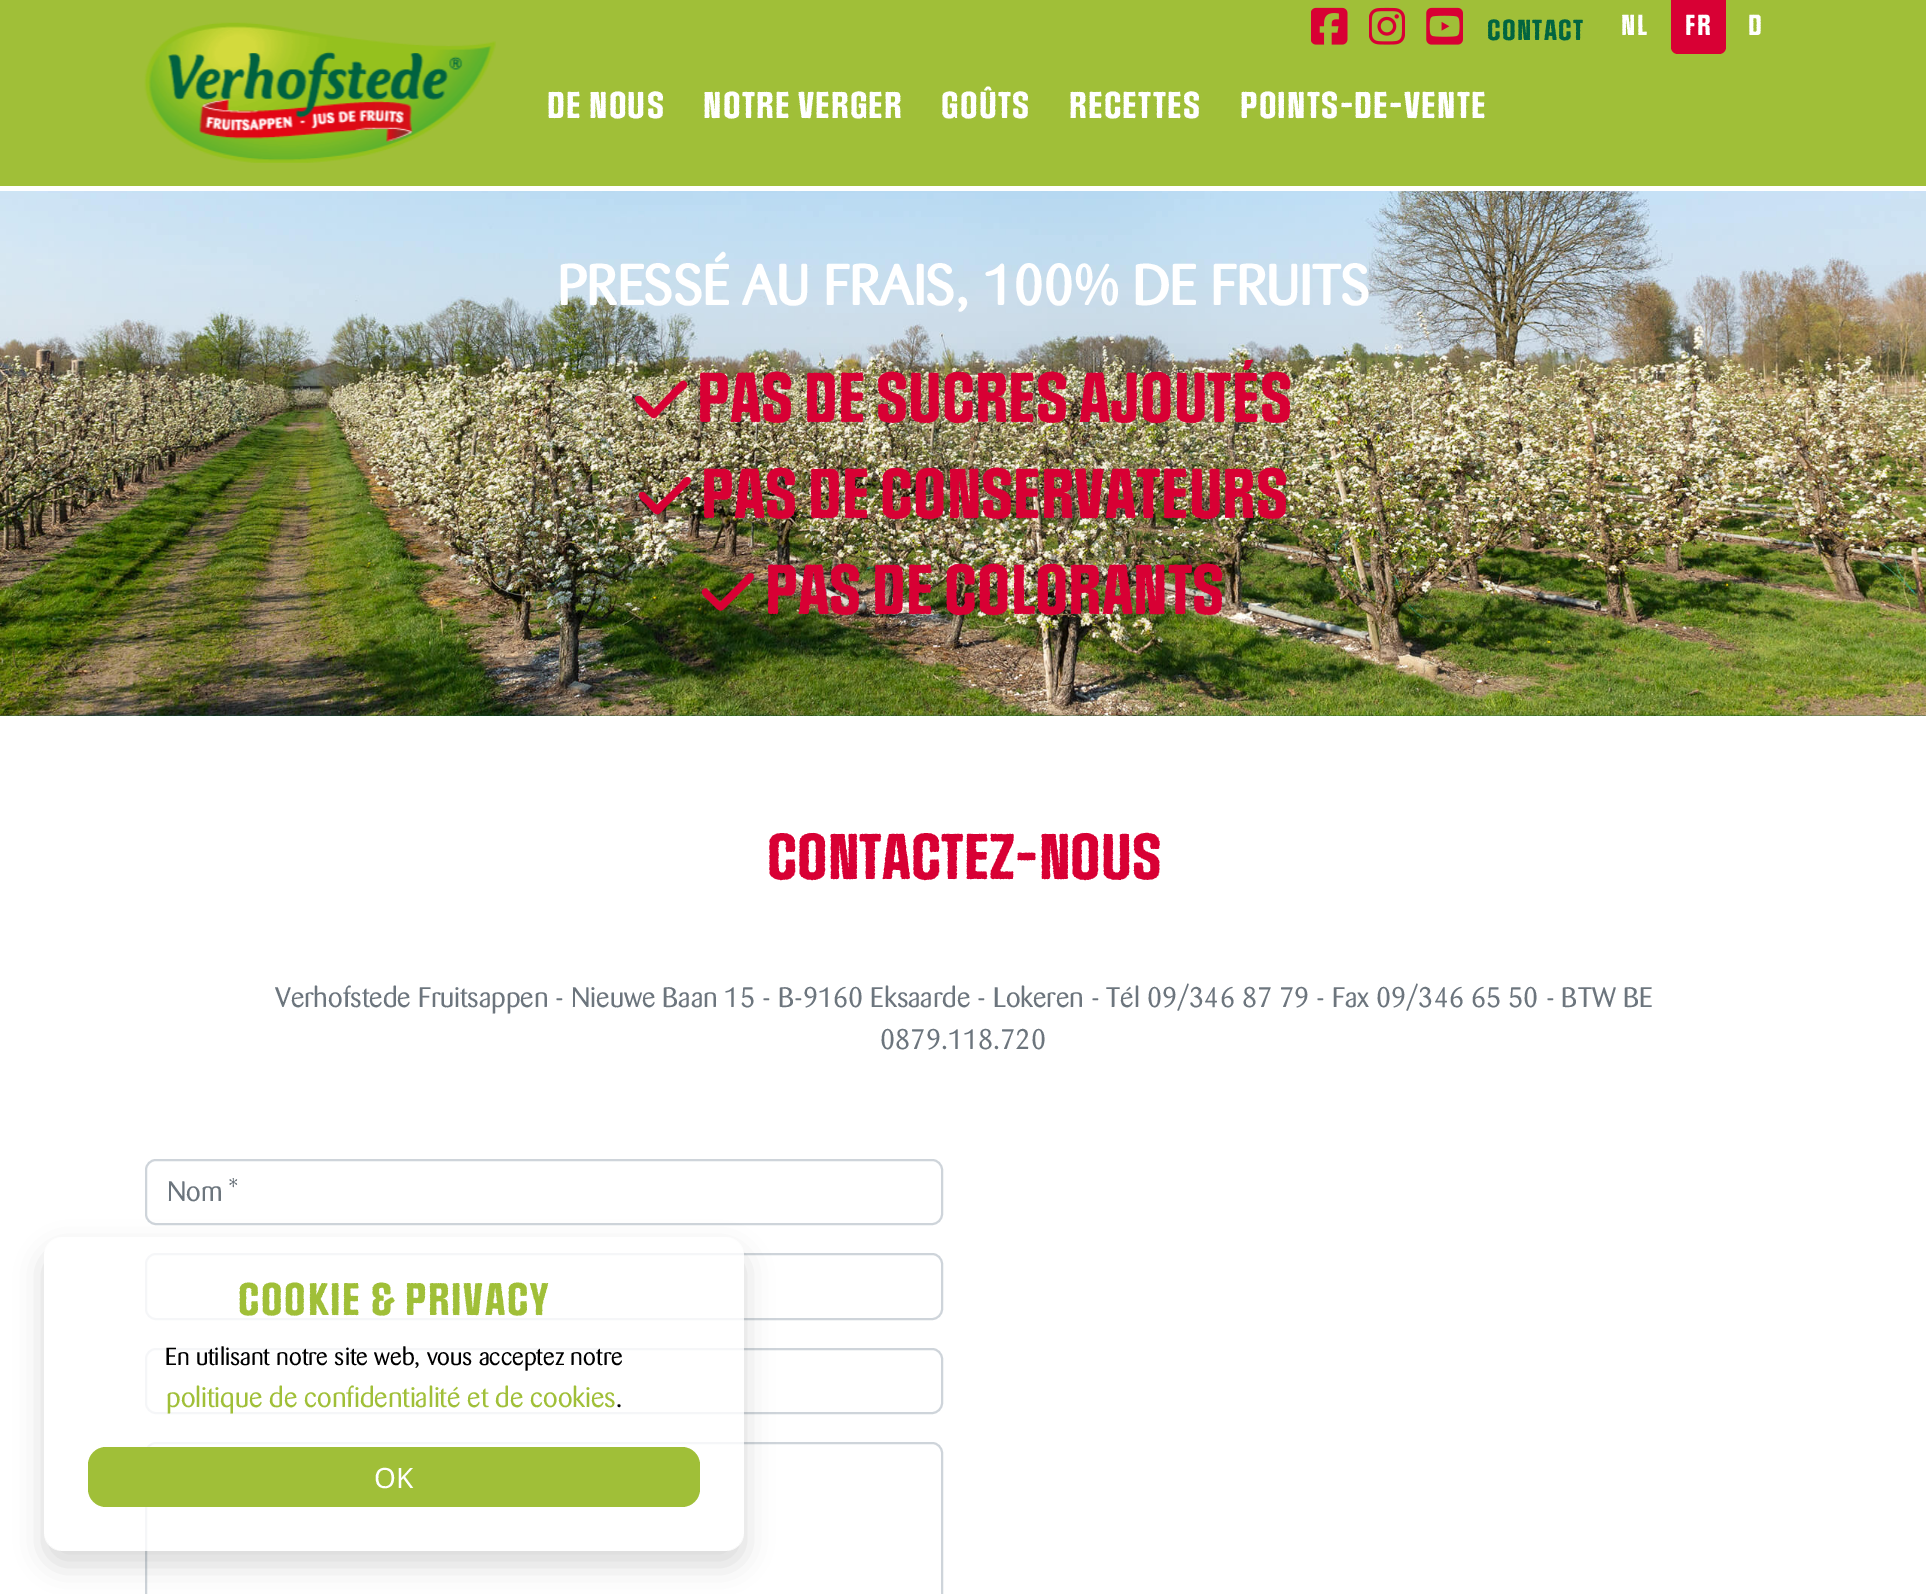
%!PS-Adobe-3.0
%%BoundingBox: 0 0 1926 1594
%%LanguageLevel: 3
%%Pages: 1
%%EndComments
%%BeginProlog
/setink { 3 { 255 div 3 1 roll } repeat setrgbcolor } def
/usefont { [ exch dup neg 0 0 3 -1 roll 0 0 ] selectfont } def
/drawtext { setink usefont moveto show } def
/fillbox { setink rectfill } def
/setalpha { dup .setfillconstantalpha .setstrokeconstantalpha } def
/rrect { 5 dict begin { /r /h /w /y /x } { exch def } forall
  x r add y moveto x w add y 2 copy h add r arct x w add y h add x 1 index r arct
  x y h add x y r arct x y 2 copy exch w add exch r arct closepath end } def
/softshadow { 12 dict begin { /a /b /q /h /w /y /x } { exch def } forall gsave /was 0 def
  9 -2 -9 { dup b mul 4 div /e exch def 1 sub .425 mul 2.718 exch exp 1 add a .99 .min exch div /now exch def
    1 1 now sub 1 was sub div sub setalpha /was now def
    w h .min e 2 mul add 0 gt { x e sub y e sub w e 2 mul add h e 2 mul add
      q e add b .6 mul add w h .min 2 div e add .min 0 .max rrect fill } if } for grestore end } def
/drawimage { 5 dict begin { /h /w /y /x /name } { exch def } forall
  gsave x y translate w h scale
  w h 8 [w 0 0 h 0 0] name (r) file false 3 colorimage grestore end } def
%%EndProlog
%%BeginSetup
<< /PageSize [1926 1594] /PageUsesTransparency true >> setpagedevice
%%EndSetup
%%Page: 1 1
0 .pushpdf14devicefilter
0 1594 translate 1 -1 scale
4 setmiterlimit
0 0 1926 1594 255 255 255 fillbox
0 0 1926 186 160 191 56 fillbox
(assets/img1.rgb) 1311 7 37 38 drawimage
(assets/img2.rgb) 1369 7 36 38 drawimage
(assets/img3.rgb) 1426 7 37 38 drawimage
/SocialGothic-Bold 24.5 usefont
2 101 64 setink
1487 40 moveto 1.25 0 (CONTACT) ashow
255 255 255 setink
1621 35 moveto 1.25 0 (NL) ashow
216 0 52 setink
1671 0 moveto 1726 0 lineto 1726 47 lineto 1726 51 1723 54 1719 54 curveto 1678 54 lineto 1674 54 1671 51 1671 47 curveto closepath fill
255 255 255 setink
1685 35 moveto 1.25 0 (FR) ashow
1748 35 moveto 1.25 0 (D) ashow
(assets/img4.rgb) 144 22 352 141 drawimage
/SocialGothic-Bold 31.5 usefont
547 118 moveto 1.25 0 (DE NOUS) ashow
703 118 moveto 1.25 0 (NOTRE VERGER) ashow
941 118 moveto 1.25 0 (GOÛTS) ashow
1069 118 moveto 1.25 0 (RECETTES) ashow
1240 118 moveto 1.25 0 (POINTS-DE-VENTE) ashow
(assets/img5.rgb) 0 191 1926 525 drawimage
(PRESSÉ AU FRAIS, 100% DE FRUITS) 557 305 /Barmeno-Bold 56 255 255 255 drawtext
216 0 52 setink
686 382 moveto 690 386 683 390 681 392 curveto 661 412 lineto 655 418 655 421 649 415 curveto 641 407 lineto 640 405 631 399 637 396 curveto 638 396 640 396 641 396 curveto 654 409 lineto 676 386 lineto 679 384 682 378 686 382 curveto closepath fill
(PAS DE SUCRES AJOUTÉS) 697 422 /SocialGothic-Bold 59.5 216 0 52 drawtext
690 478 moveto 693 482 687 486 685 488 curveto 665 508 lineto 659 514 658 517 652 511 curveto 645 503 lineto 643 502 635 495 641 492 curveto 642 492 643 492 644 492 curveto 657 505 lineto 680 483 lineto 682 480 686 475 690 478 curveto closepath fill
(PAS DE CONSERVATEURS) 701 518 /SocialGothic-Bold 59.5 216 0 52 drawtext
753 574 moveto 756 578 750 583 748 585 curveto 728 605 lineto 722 611 721 613 715 607 curveto 708 600 lineto 706 598 698 592 704 589 curveto 705 588 706 588 707 589 curveto 720 602 lineto 743 579 lineto 745 577 749 571 753 574 curveto closepath fill
(PAS DE COLORANTS) 765 614 /SocialGothic-Bold 59.5 216 0 52 drawtext
(CONTACTEZ-NOUS) 767 879 /SocialGothic-Bold 54.5 216 0 52 drawtext
(Verhofstede Fruitsappen - Nieuwe Baan 15 - B-9160 Eksaarde - Lokeren - Tél 09/346 87 79 - Fax 09/346 65 50 - BTW BE) 275 1007 /Barmeno-Regular 28 108 117 125 drawtext
(0879.118.720) 880 1049 /Barmeno-Regular 28 108 117 125 drawtext
206 212 218 setink
2 setlinewidth
146 1160 796 64 10 rrect stroke
gsave
168 1178 753 28 rectclip
(Nom *) 167 1201 /Barmeno-Regular 28 108 117 125 drawtext
grestore
146 1254 796 65 10 rrect stroke
146 1349 796 64 10 rrect stroke
146 1443 796 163 10 rrect stroke
gsave
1 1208 moveto 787 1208 lineto 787 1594 lineto 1 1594 lineto closepath 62 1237 moveto 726 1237 lineto 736 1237 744 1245 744 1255 curveto 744 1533 lineto 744 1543 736 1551 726 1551 curveto 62 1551 lineto 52 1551 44 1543 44 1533 curveto 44 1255 lineto 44 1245 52 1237 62 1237 curveto closepath eoclip newpath
0 0 0 setink
44 1251 700 314 18 14 0.15 softshadow
grestore
0.8 setalpha
255 255 255 setink
44 1237 700 314 18 rrect fill
/SocialGothic-Bold 38.5 usefont
1 setalpha
160 191 56 setink
238 1315 moveto 1.75 0 (COOKIE & PRIVACY) ashow
(En utilisant notre site web, vous acceptez notre) 165 1365 /Barmeno-Regular 24.5 0 0 0 drawtext
(politique de confidentialité et de cookies) 166 1407 /Barmeno-Regular 28 160 191 56 drawtext
(.) 616 1407 /Barmeno-Regular 24.5 0 0 0 drawtext
160 191 56 setink
88 1447 612 60 18 rrect fill
(OK) 374 1488 /NotoSans-Regular 28 255 255 255 drawtext
.poppdf14devicefilter showpage
%%EOF
